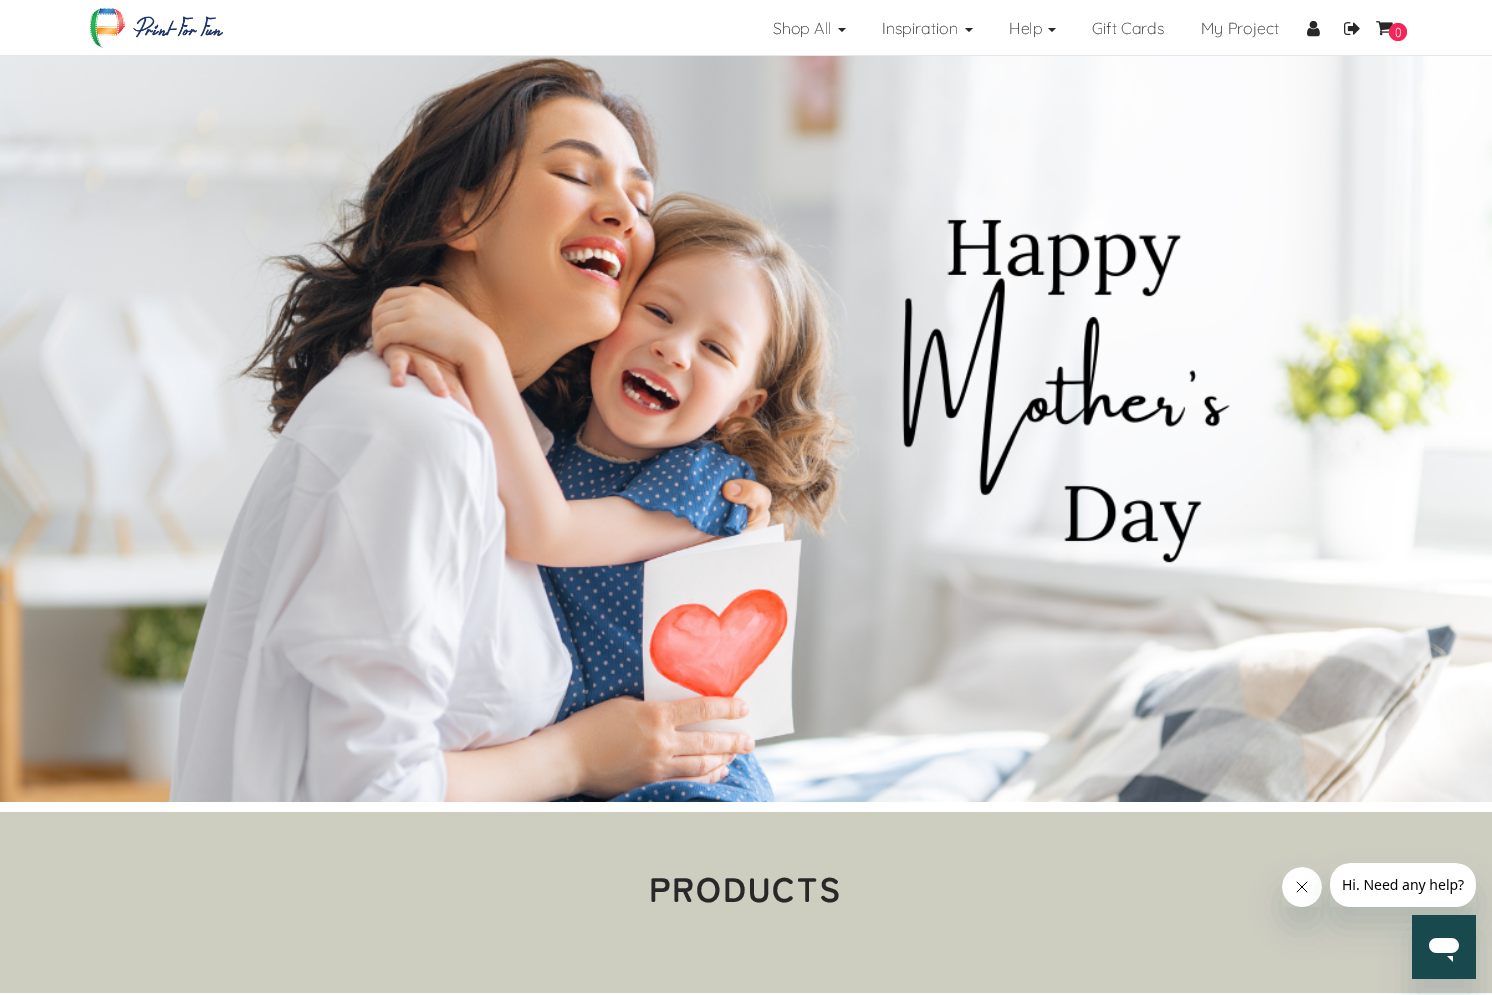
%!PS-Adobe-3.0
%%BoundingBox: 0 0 1492 995
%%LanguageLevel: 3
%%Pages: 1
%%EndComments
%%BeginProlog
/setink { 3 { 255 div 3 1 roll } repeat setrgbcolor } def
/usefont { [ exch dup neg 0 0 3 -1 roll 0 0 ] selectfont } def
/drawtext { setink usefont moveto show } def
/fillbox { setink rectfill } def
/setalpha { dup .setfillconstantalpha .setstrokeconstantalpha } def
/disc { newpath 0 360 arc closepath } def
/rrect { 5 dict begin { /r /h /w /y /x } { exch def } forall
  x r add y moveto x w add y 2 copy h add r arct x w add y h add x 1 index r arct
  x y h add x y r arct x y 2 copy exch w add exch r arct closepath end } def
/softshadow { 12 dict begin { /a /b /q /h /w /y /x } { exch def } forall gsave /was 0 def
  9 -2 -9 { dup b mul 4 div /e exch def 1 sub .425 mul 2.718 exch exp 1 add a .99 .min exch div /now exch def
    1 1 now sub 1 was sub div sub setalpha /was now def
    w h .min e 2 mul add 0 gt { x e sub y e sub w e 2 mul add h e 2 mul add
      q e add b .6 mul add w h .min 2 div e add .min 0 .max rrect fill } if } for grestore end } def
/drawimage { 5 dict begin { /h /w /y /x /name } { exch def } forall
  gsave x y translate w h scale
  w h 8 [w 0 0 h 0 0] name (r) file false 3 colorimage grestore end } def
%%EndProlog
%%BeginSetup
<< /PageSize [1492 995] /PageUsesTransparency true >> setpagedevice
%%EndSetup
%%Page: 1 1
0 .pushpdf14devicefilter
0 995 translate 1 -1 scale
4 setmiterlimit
0 0 1492 995 255 255 255 fillbox
0 55 1492 1 231 231 231 fillbox
(assets/img1.rgb) 90 8 133 40 drawimage
(Shop All) 773 34 /Quicksand-Light 16 40 40 40 drawtext
838 28 moveto 846 28 lineto 842 32 lineto closepath fill
(Inspiration) 882 34 /Quicksand-Light 16 40 40 40 drawtext
965 28 moveto 973 28 lineto 969 32 lineto closepath fill
(Help) 1009 34 /Quicksand-Light 16 40 40 40 drawtext
1048 28 moveto 1056 28 lineto 1052 32 lineto closepath fill
(Gift Cards) 1092 34 /Quicksand-Light 16 40 40 40 drawtext
(My Project) 1201 34 /Quicksand-Light 16 40 40 40 drawtext
(assets/img2.rgb) 1307 20 13 17 drawimage
(assets/img3.rgb) 1344 22 16 13 drawimage
(assets/img4.rgb) 1376 21 17 15 drawimage
246 36 89 setink
1398 32 9 disc fill
(0) 1395 37 /ZenMaruGothic-Regular 13 255 255 255 drawtext
(assets/img5.rgb) 0 56 1492 746 drawimage
0 812 1492 181 205 205 192 fillbox
/ZenMaruGothic-Bold 34 usefont
40 40 40 setink
649 902 moveto 2 0 (PRODUCTS) ashow
23 73 77 setink
1282 887 40 40 20 15 0.15 softshadow
(assets/img7.rgb) 1282 867 40 40 drawimage
1330 883 146 44 20 15 0.15 softshadow
(assets/img6.rgb) 1330 863 146 44 drawimage
1412 935 64 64 0 15 0.15 softshadow
(assets/img8.rgb) 1412 915 64 64 drawimage
.poppdf14devicefilter showpage
%%EOF
